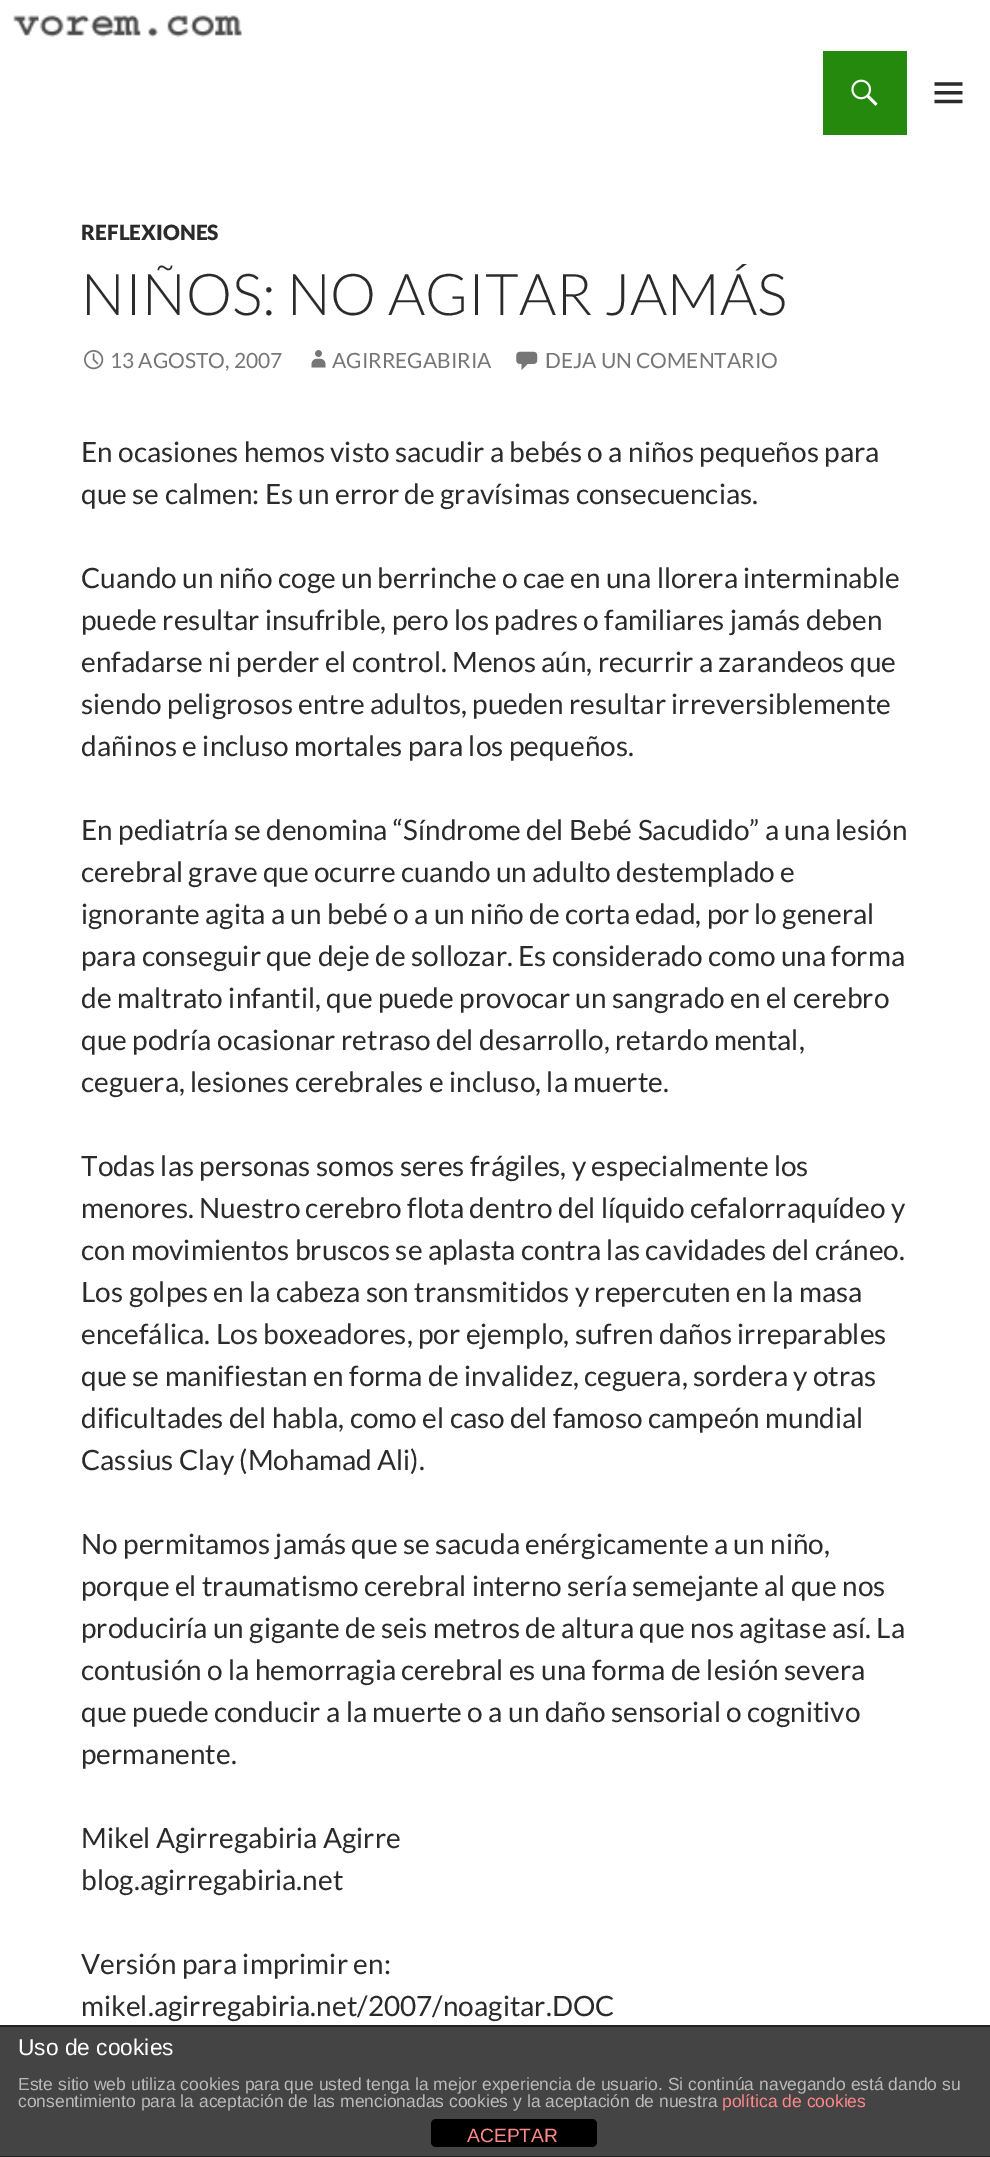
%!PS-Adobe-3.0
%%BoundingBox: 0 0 990 2157
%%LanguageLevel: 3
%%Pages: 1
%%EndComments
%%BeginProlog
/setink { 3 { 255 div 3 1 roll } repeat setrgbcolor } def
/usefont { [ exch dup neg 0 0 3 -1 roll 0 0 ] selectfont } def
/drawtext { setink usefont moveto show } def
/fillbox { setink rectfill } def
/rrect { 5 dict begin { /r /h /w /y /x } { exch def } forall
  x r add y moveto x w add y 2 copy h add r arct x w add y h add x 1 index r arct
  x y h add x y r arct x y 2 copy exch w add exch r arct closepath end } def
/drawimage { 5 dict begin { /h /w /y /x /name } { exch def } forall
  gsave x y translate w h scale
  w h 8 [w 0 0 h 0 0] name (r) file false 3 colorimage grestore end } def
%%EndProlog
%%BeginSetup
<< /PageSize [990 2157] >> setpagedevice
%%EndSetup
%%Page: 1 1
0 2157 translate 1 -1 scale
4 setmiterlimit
0 0 990 2157 255 255 255 fillbox
(assets/img1.rgb) 13 15 229 23 drawimage
823 51 84 84 36 137 13 fillbox
(assets/img2.rgb) 851 79 27 27 drawimage
(assets/img3.rgb) 934 82 29 22 drawimage
(REFLEXIONES) 81 240 /Lato-Black 21 43 43 43 drawtext
(NIÑOS: NO AGITAR JAMÁS) 81 315 /Lato-Light 57.75 43 43 43 drawtext
(assets/img4.rgb) 84 350 20 20 drawimage
(13 AGOSTO, 2007) 110 368 /Lato-Regular 21 118 118 118 drawtext
(assets/img5.rgb) 311 350 15 18 drawimage
(AGIRREGABIRIA) 332 368 /Lato-Regular 21 118 118 118 drawtext
(assets/img6.rgb) 516 351 22 19 drawimage
(DEJA UN COMENTARIO) 545 368 /Lato-Regular 21 118 118 118 drawtext
(En ocasiones hemos visto sacudir a bebés o a niños pequeños para) 81 462 /Lato-Regular 28 43 43 43 drawtext
(que se calmen: Es un error de gravísimas consecuencias.) 81 504 /Lato-Regular 28 43 43 43 drawtext
(Cuando un niño coge un berrinche o cae en una llorera interminable) 81 588 /Lato-Regular 28 43 43 43 drawtext
(puede resultar insufrible, pero los padres o familiares jamás deben) 81 630 /Lato-Regular 28 43 43 43 drawtext
(enfadarse ni perder el control. Menos aún, recurrir a zarandeos que) 81 672 /Lato-Regular 28 43 43 43 drawtext
(siendo peligrosos entre adultos, pueden resultar irreversiblemente) 81 714 /Lato-Regular 28 43 43 43 drawtext
(dañinos e incluso mortales para los pequeños.) 81 756 /Lato-Regular 28 43 43 43 drawtext
(En pediatría se denomina “Síndrome del Bebé Sacudido” a una lesión) 81 840 /Lato-Regular 28 43 43 43 drawtext
(cerebral grave que ocurre cuando un adulto destemplado e) 81 882 /Lato-Regular 28 43 43 43 drawtext
(ignorante agita a un bebé o a un niño de corta edad, por lo general) 81 924 /Lato-Regular 28 43 43 43 drawtext
(para conseguir que deje de sollozar. Es considerado como una forma) 81 966 /Lato-Regular 28 43 43 43 drawtext
(de maltrato infantil, que puede provocar un sangrado en el cerebro) 81 1008 /Lato-Regular 28 43 43 43 drawtext
(que podría ocasionar retraso del desarrollo, retardo mental,) 81 1050 /Lato-Regular 28 43 43 43 drawtext
(ceguera, lesiones cerebrales e incluso, la muerte.) 81 1092 /Lato-Regular 28 43 43 43 drawtext
(Todas las personas somos seres frágiles, y especialmente los) 81 1176 /Lato-Regular 28 43 43 43 drawtext
(menores. Nuestro cerebro flota dentro del líquido cefalorraquídeo y) 81 1218 /Lato-Regular 28 43 43 43 drawtext
(con movimientos bruscos se aplasta contra las cavidades del cráneo.) 81 1260 /Lato-Regular 28 43 43 43 drawtext
(Los golpes en la cabeza son transmitidos y repercuten en la masa) 81 1302 /Lato-Regular 28 43 43 43 drawtext
(encefálica. Los boxeadores, por ejemplo, sufren daños irreparables) 81 1344 /Lato-Regular 28 43 43 43 drawtext
(que se manifiestan en forma de invalidez, ceguera, sordera y otras) 81 1386 /Lato-Regular 28 43 43 43 drawtext
(dificultades del habla, como el caso del famoso campeón mundial) 81 1428 /Lato-Regular 28 43 43 43 drawtext
(Cassius Clay \(Mohamad Ali\).) 81 1470 /Lato-Regular 28 43 43 43 drawtext
(No permitamos jamás que se sacuda enérgicamente a un niño,) 81 1554 /Lato-Regular 28 43 43 43 drawtext
(porque el traumatismo cerebral interno sería semejante al que nos) 81 1596 /Lato-Regular 28 43 43 43 drawtext
(produciría un gigante de seis metros de altura que nos agitase así. La) 81 1638 /Lato-Regular 28 43 43 43 drawtext
(contusión o la hemorragia cerebral es una forma de lesión severa) 81 1680 /Lato-Regular 28 43 43 43 drawtext
(que puede conducir a la muerte o a un daño sensorial o cognitivo) 81 1722 /Lato-Regular 28 43 43 43 drawtext
(permanente.) 81 1764 /Lato-Regular 28 43 43 43 drawtext
(Mikel Agirregabiria Agirre) 81 1848 /Lato-Regular 28 43 43 43 drawtext
(blog.agirregabiria.net) 81 1890 /Lato-Regular 28 43 43 43 drawtext
(Versión para imprimir en:) 81 1974 /Lato-Regular 28 43 43 43 drawtext
(mikel.agirregabiria.net/2007/noagitar.DOC) 81 2016 /Lato-Regular 28 43 43 43 drawtext
0 2027 990 129 68 68 68 fillbox
0 2025 990 2 34 34 34 fillbox
0 2156 990 1 34 34 34 fillbox
(Uso de cookies) 18 2055 /LiberationSans-Regular 22.75 255 255 255 drawtext
(Este sitio web utiliza cookies para que usted tenga la mejor experiencia de usuario. Si continúa navegando está dando su) 18 2090 /LiberationSans-Regular 17.5 187 187 187 drawtext
(consentimiento para la aceptación de las mencionadas cookies y la aceptación de nuestra) 18 2107 /LiberationSans-Regular 17.5 187 187 187 drawtext
(política de cookies) 722 2107 /LiberationSans-Regular 17.5 255 136 136 drawtext
0 0 0 setink
431 2119 166 28 5 rrect fill
(ACEPTAR) 467 2142 /LiberationSans-Regular 19.25 255 136 136 drawtext
showpage
%%EOF
